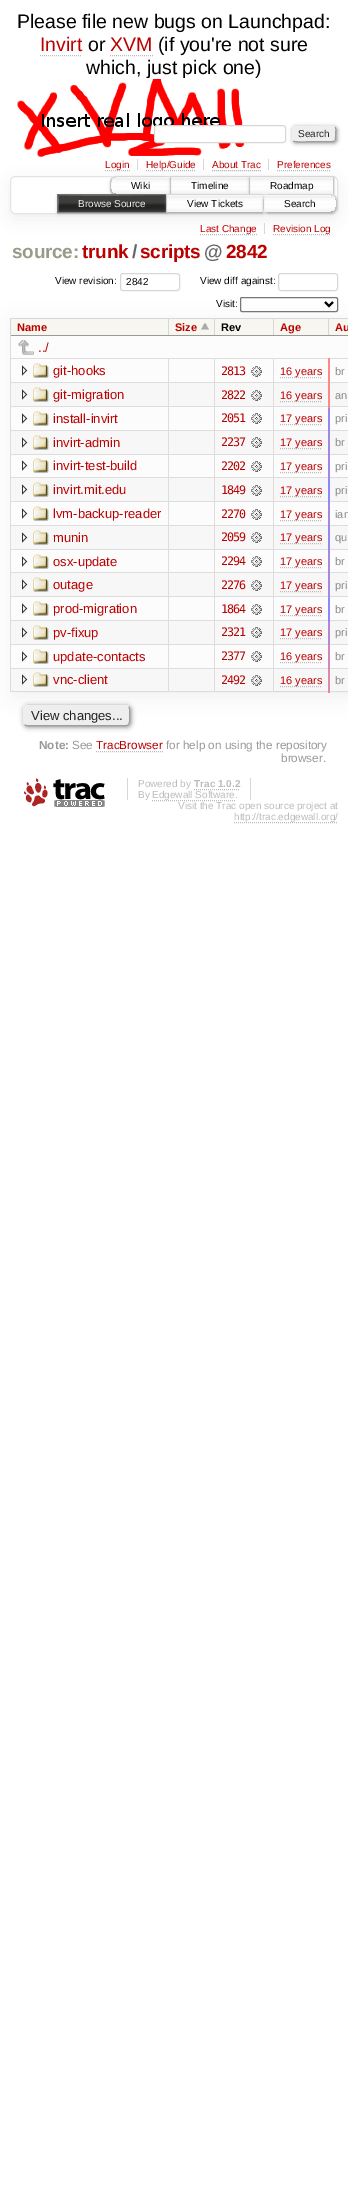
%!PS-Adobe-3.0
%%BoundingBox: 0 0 348 2204
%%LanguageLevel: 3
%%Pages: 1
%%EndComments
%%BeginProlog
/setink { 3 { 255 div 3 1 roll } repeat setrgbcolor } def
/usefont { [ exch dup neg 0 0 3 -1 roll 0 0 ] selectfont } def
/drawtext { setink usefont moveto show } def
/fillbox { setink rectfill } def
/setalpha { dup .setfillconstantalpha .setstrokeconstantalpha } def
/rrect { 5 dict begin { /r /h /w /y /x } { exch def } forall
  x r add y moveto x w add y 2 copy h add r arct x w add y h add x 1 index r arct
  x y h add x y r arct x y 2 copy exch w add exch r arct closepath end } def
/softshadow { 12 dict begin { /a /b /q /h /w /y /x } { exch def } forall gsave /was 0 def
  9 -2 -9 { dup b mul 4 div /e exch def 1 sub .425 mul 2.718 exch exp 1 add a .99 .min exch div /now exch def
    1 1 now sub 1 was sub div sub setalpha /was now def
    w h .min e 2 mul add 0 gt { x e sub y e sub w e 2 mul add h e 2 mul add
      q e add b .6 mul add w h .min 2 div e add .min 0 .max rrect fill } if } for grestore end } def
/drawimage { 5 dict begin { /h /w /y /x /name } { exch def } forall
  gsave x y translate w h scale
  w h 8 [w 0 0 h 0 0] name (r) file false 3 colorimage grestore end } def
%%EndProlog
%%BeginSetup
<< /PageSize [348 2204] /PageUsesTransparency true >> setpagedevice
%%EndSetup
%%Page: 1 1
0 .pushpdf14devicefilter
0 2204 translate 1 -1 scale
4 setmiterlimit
0 0 348 2204 255 255 255 fillbox
(Please file new bugs on Launchpad:) 17 28 /LiberationSans-Regular 19.5 0 0 0 drawtext
(Invirt) 40 51 /LiberationSans-Regular 19.5 187 0 0 drawtext
187 187 187 setink
[1 1] 0 setdash
40 55.5 moveto 82 55.5 lineto stroke
(or) 88 51 /LiberationSans-Regular 19.5 0 0 0 drawtext
(XVM) 110 51 /LiberationSans-Regular 19.5 187 0 0 drawtext
187 187 187 setink
110 55.5 moveto 153 55.5 lineto stroke
(\(if you're not sure) 158 51 /LiberationSans-Regular 19.5 0 0 0 drawtext
(which, just pick one\)) 86 74 /LiberationSans-Regular 19.5 0 0 0 drawtext
(assets/img1.rgb) 17 79 228 78 drawimage
255 255 255 setink
154.5 125.5 131 17 2.5 rrect gsave fill grestore
215 215 215 setink
[] 0 setdash
stroke
136 136 136 setink
293 127 44 16 3 2 1 softshadow
238 238 238 setink
292 126 44 16 3 rrect fill
159 159 159 setink
335 127 moveto 336.5 129 335.5 132 335.5 134 curveto 335.5 142.5 336 141.5 326.5 141.5 curveto 314 141.5 lineto 311 141.5 295 142.5 293 141 curveto stroke
238 238 238 setink
293 141 moveto 291.5 139 292.5 136 292.5 134 curveto 292.5 125.5 292 126.5 301.5 126.5 curveto 314 126.5 lineto 317 126.5 333 125.5 335 127 curveto stroke
(Search) 298 137 /LiberationSans-Regular 10 34 34 34 drawtext
gsave
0 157 moveto 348 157 lineto 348 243 lineto 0 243 lineto closepath 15 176 moveto 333 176 lineto 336 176 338 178 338 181 curveto 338 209 lineto 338 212 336 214 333 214 curveto 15 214 lineto 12 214 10 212 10 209 curveto 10 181 lineto 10 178 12 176 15 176 curveto closepath eoclip newpath
238 238 238 setink
10 181 328 38 5 7.5 1 softshadow
grestore
137 159 1 11 215 215 215 fillbox
187 187 187 setink
[1 1] 0 setdash
105 170.5 moveto 130 170.5 lineto stroke
(Login) 105 168 /LiberationSans-Regular 10 187 0 0 drawtext
203 159 1 11 215 215 215 fillbox
187 187 187 setink
146 170.5 moveto 196 170.5 lineto stroke
(Help/Guide) 146 168 /LiberationSans-Regular 10 187 0 0 drawtext
268 159 1 11 215 215 215 fillbox
(About Trac) 212 168 /LiberationSans-Regular 10 187 0 0 drawtext
187 187 187 setink
212 170.5 moveto 261 170.5 lineto stroke
(Preferences) 277 168 /LiberationSans-Regular 10 187 0 0 drawtext
187 187 187 setink
277 170.5 moveto 331 170.5 lineto stroke
228 228 228 setink
[] 0 setdash
10.5 176.5 327 37 4.5 rrect stroke
255 255 255 setink
115 176 moveto 171 176 lineto 171 195 lineto 115 195 lineto 112 195 110 193 110 190 curveto 110 181 lineto 110 178 112 176 115 176 curveto closepath fill
(assets/img2.rgb) 110 178 60 16 drawimage
228 228 228 setink
115 176.5 moveto 170.5 176.5 lineto 170.5 194.5 lineto 115 194.5 lineto 112.5 194.5 110.5 192.5 110.5 190 curveto 110.5 181 lineto 110.5 178.5 112.5 176.5 115 176.5 curveto closepath stroke
gsave
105 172 moveto 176 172 lineto 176 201 lineto 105 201 lineto closepath 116 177 moveto 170 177 lineto 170 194 lineto 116 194 lineto 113 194 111 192 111 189 curveto 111 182 lineto 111 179 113 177 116 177 curveto closepath eoclip newpath
153 153 153 setink
111 178 59 17 5 1.5 1 softshadow
grestore
(Wiki) 131 189 /LiberationSans-Regular 10 0 0 0 drawtext
171 179 2 15 255 255 255 fillbox
(assets/img3.rgb) 171 178 78 16 drawimage
228 228 228 setink
170.5 176.5 79 18 rectstroke
gsave
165 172 moveto 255 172 lineto 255 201 lineto 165 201 lineto closepath 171 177 moveto 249 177 lineto 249 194 lineto 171 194 lineto closepath eoclip newpath
153 153 153 setink
171 178 78 17 0 1.5 1 softshadow
grestore
(Timeline) 191 189 /LiberationSans-Regular 10 0 0 0 drawtext
250 177 2 17 255 255 255 fillbox
(assets/img4.rgb) 250 178 83 16 drawimage
228 228 228 setink
249.5 176.5 84 18 rectstroke
gsave
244 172 moveto 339 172 lineto 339 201 lineto 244 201 lineto closepath 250 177 moveto 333 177 lineto 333 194 lineto 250 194 lineto closepath eoclip newpath
153 153 153 setink
250 178 83 17 0 1.5 1 softshadow
grestore
(Roadmap) 270 189 /LiberationSans-Regular 10 0 0 0 drawtext
102 102 102 setink
57.5 194.5 109 18 rectstroke
153 153 153 setink
58 196 108 17 0 1.5 1 softshadow
58 195 108 17 0 0 0 fillbox
(assets/img5.rgb) 58 195 108 17 drawimage
(Browse Source) 78 207 /LiberationSans-Regular 10 238 238 238 drawtext
167 195 96 17 255 255 255 fillbox
(assets/img6.rgb) 167 196 96 16 drawimage
228 228 228 setink
166.5 194.5 97 18 rectstroke
gsave
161 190 moveto 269 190 lineto 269 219 lineto 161 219 lineto closepath 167 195 moveto 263 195 lineto 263 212 lineto 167 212 lineto closepath eoclip newpath
153 153 153 setink
167 196 96 17 0 1.5 1 softshadow
grestore
(View Tickets) 187 207 /LiberationSans-Regular 10 0 0 0 drawtext
255 255 255 setink
263 194 moveto 332 194 lineto 335 194 337 196 337 199 curveto 337 208 lineto 337 211 335 213 332 213 curveto 263 213 lineto closepath fill
(assets/img7.rgb) 264 196 73 17 drawimage
228 228 228 setink
263.5 194.5 moveto 332 194.5 lineto 334.5 194.5 336.5 196.5 336.5 199 curveto 336.5 208 lineto 336.5 210.5 334.5 212.5 332 212.5 curveto 263.5 212.5 lineto closepath stroke
gsave
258 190 moveto 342 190 lineto 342 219 lineto 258 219 lineto closepath 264 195 moveto 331 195 lineto 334 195 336 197 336 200 curveto 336 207 lineto 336 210 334 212 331 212 curveto 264 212 lineto closepath eoclip newpath
153 153 153 setink
264 196 72 17 5 1.5 1 softshadow
grestore
(Search) 284 207 /LiberationSans-Regular 10 0 0 0 drawtext
264 223 1 11 215 215 215 fillbox
187 187 187 setink
[1 1] 0 setdash
200 234.5 moveto 257 234.5 lineto stroke
(Last Change) 200 232 /LiberationSans-Regular 10 187 0 0 drawtext
187 187 187 setink
273 234.5 moveto 331 234.5 lineto stroke
(Revision Log) 273 232 /LiberationSans-Regular 10 187 0 0 drawtext
/LiberationSans-Bold 19 usefont
153 153 136 setink
12 258 moveto -0.25 0 (source:) ashow
187 0 0 setink
82 258 moveto -0.25 0 (trunk) ashow
102 102 102 setink
132 258 moveto -0.25 0 (/) ashow
187 0 0 setink
140 258 moveto -0.25 0 (scripts) ashow
102 102 102 setink
204 258 moveto -0.25 0 (@) ashow
187 0 0 setink
226 258 moveto -0.25 0 (2842) ashow
(View revision:) 55 284 /LiberationSans-Regular 10 0 0 0 drawtext
215 215 215 setink
[] 0 setdash
120.5 273.5 59 17 2.5 rrect stroke
(2842) 126 285 /LiberationSans-Regular 10 0 0 0 drawtext
(View diff against:) 200 284 /LiberationSans-Regular 10 0 0 0 drawtext
215 215 215 setink
278.5 273.5 59 17 2.5 rrect stroke
238 238 238 setink
13 322 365 374 0 10 1 softshadow
(Visit:) 216 307 /LiberationSans-Regular 10 0 0 0 drawtext
118 118 118 setink
240.5 297.5 97 14 1.5 rrect stroke
0 0 0 setink
2 setlinewidth
325 302 moveto 329 306 lineto 333 302 lineto stroke
274 691 54 1 215 215 215 fillbox
11 319 337 16 247 247 240 fillbox
328 318 20 1 215 215 215 fillbox
328 335 20 1 153 153 153 fillbox
328 318 1 18 215 215 215 fillbox
273 318 56 1 215 215 215 fillbox
273 335 56 1 153 153 153 fillbox
273 318 1 18 215 215 215 fillbox
214 318 60 1 215 215 215 fillbox
214 335 60 1 153 153 153 fillbox
214 318 1 18 215 215 215 fillbox
168 318 47 1 215 215 215 fillbox
168 335 47 1 153 153 153 fillbox
168 318 1 18 215 215 215 fillbox
10 318 159 1 215 215 215 fillbox
10 358 338 1 221 221 221 fillbox
10 382 338 1 221 221 221 fillbox
10 406 338 1 221 221 221 fillbox
10 430 338 1 221 221 221 fillbox
10 454 338 1 221 221 221 fillbox
10 477 338 1 221 221 221 fillbox
10 501 338 1 221 221 221 fillbox
10 525 338 1 221 221 221 fillbox
10 549 338 1 221 221 221 fillbox
10 572 338 1 221 221 221 fillbox
10 596 338 1 221 221 221 fillbox
10 620 338 1 221 221 221 fillbox
10 644 338 1 221 221 221 fillbox
10 668 338 1 221 221 221 fillbox
11 359 337 23 252 252 252 fillbox
16 383 332 23 247 247 247 fillbox
11 407 337 23 252 252 252 fillbox
16 431 332 23 247 247 247 fillbox
11 455 337 22 252 252 252 fillbox
16 478 332 23 247 247 247 fillbox
11 502 337 23 252 252 252 fillbox
16 526 332 23 247 247 247 fillbox
11 550 337 22 252 252 252 fillbox
16 573 332 23 247 247 247 fillbox
11 597 337 23 252 252 252 fillbox
16 621 332 23 247 247 247 fillbox
11 645 337 23 252 252 252 fillbox
11 669 337 22 247 247 247 fillbox
273 358 1 334 221 221 221 fillbox
214 691 60 1 221 221 221 fillbox
214 358 1 334 221 221 221 fillbox
168 691 47 1 221 221 221 fillbox
168 358 1 334 221 221 221 fillbox
10 691 159 1 221 221 221 fillbox
10 335 1 357 221 221 221 fillbox
10 335 159 1 153 153 153 fillbox
10 318 1 18 215 215 215 fillbox
(Name) 17 331 /LiberationSans-Bold 11 187 0 0 drawtext
(Size) 175 331 /LiberationSans-Bold 11 187 0 0 drawtext
(assets/img8.rgb) 201 323 8 7 drawimage
(Rev) 221 331 /LiberationSans-Bold 11 0 0 0 drawtext
(Age) 280 331 /LiberationSans-Bold 11 187 0 0 drawtext
(Au) 335 331 /LiberationSans-Bold 11 187 0 0 drawtext
11 336 337 22 252 252 252 fillbox
(assets/img9.rgb) 18 340 16 15 drawimage
(../) 38 352 /LiberationSans-Regular 13 187 0 0 drawtext
(assets/img10.rgb) 22 365 6 11 drawimage
(assets/img11.rgb) 33 363 16 15 drawimage
(git-hooks) 53 375 /LiberationSans-Regular 13 187 0 0 drawtext
/DejaVuSansMono-Regular 11.75 usefont
221 375 moveto -1 0 (2813) ashow
(assets/img12.rgb) 251 366 11 11 drawimage
187 187 187 setink
1 setlinewidth
[1 1] 0 setdash
280 377.5 moveto 322 377.5 lineto stroke
(16 years) 280 375 /LiberationSans-Regular 11 187 0 0 drawtext
(br) 335 375 /LiberationSans-Regular 11 136 136 136 drawtext
(assets/img13.rgb) 22 389 6 11 drawimage
(assets/img14.rgb) 33 387 16 15 drawimage
(git-migration) 53 399 /LiberationSans-Regular 13 187 0 0 drawtext
/DejaVuSansMono-Regular 11.75 usefont
221 399 moveto -1 0 (2822) ashow
(assets/img15.rgb) 251 390 11 11 drawimage
328 691 20 1 221 221 221 fillbox
328 667 2 26 225 136 165 fillbox
328 643 2 26 210 136 180 fillbox
328 620 2 25 179 136 211 fillbox
328 596 2 26 139 136 251 fillbox
328 572 2 26 168 136 222 fillbox
328 548 2 26 171 136 219 fillbox
328 524 2 26 151 136 239 fillbox
328 501 2 25 167 136 223 fillbox
328 477 2 26 136 136 255 fillbox
328 453 2 26 159 136 231 fillbox
328 429 2 26 160 136 230 fillbox
328 406 2 25 151 136 239 fillbox
328 358 2 50 254 136 136 fillbox
187 187 187 setink
280 401.5 moveto 322 401.5 lineto stroke
(16 years) 280 399 /LiberationSans-Regular 11 187 0 0 drawtext
(an) 335 399 /LiberationSans-Regular 11 136 136 136 drawtext
(assets/img10.rgb) 22 413 6 11 drawimage
(assets/img11.rgb) 33 411 16 15 drawimage
(install-invirt) 53 423 /LiberationSans-Regular 13 187 0 0 drawtext
/DejaVuSansMono-Regular 11.75 usefont
221 422 moveto -1 0 (2051) ashow
(assets/img12.rgb) 251 413 11 11 drawimage
187 187 187 setink
280 424.5 moveto 322 424.5 lineto stroke
(17 years) 280 422 /LiberationSans-Regular 11 187 0 0 drawtext
(pri) 335 422 /LiberationSans-Regular 11 136 136 136 drawtext
(assets/img13.rgb) 22 437 6 11 drawimage
(assets/img14.rgb) 33 435 16 15 drawimage
(invirt-admin) 53 447 /LiberationSans-Regular 13 187 0 0 drawtext
/DejaVuSansMono-Regular 11.75 usefont
221 446 moveto -1 0 (2237) ashow
(assets/img15.rgb) 251 437 11 11 drawimage
187 187 187 setink
280 448.5 moveto 322 448.5 lineto stroke
(17 years) 280 446 /LiberationSans-Regular 11 187 0 0 drawtext
(br) 335 446 /LiberationSans-Regular 11 136 136 136 drawtext
(assets/img10.rgb) 22 460 6 11 drawimage
(assets/img11.rgb) 33 458 16 15 drawimage
(invirt-test-build) 53 470 /LiberationSans-Regular 13 187 0 0 drawtext
/DejaVuSansMono-Regular 11.75 usefont
221 470 moveto -1 0 (2202) ashow
(assets/img12.rgb) 251 461 11 11 drawimage
187 187 187 setink
280 472.5 moveto 322 472.5 lineto stroke
(17 years) 280 470 /LiberationSans-Regular 11 187 0 0 drawtext
(pri) 335 470 /LiberationSans-Regular 11 136 136 136 drawtext
(assets/img13.rgb) 22 484 6 11 drawimage
(assets/img14.rgb) 33 482 16 15 drawimage
(invirt.mit.edu) 53 494 /LiberationSans-Regular 13 187 0 0 drawtext
/DejaVuSansMono-Regular 11.75 usefont
221 494 moveto -1 0 (1849) ashow
(assets/img15.rgb) 251 485 11 11 drawimage
187 187 187 setink
280 496.5 moveto 322 496.5 lineto stroke
(17 years) 280 494 /LiberationSans-Regular 11 187 0 0 drawtext
(pri) 335 494 /LiberationSans-Regular 11 136 136 136 drawtext
(assets/img10.rgb) 22 508 6 11 drawimage
(assets/img11.rgb) 33 506 16 15 drawimage
(lvm-backup-reader) 53 518 /LiberationSans-Regular 13 187 0 0 drawtext
/DejaVuSansMono-Regular 11.75 usefont
221 518 moveto -1 0 (2270) ashow
(assets/img12.rgb) 251 509 11 11 drawimage
187 187 187 setink
280 520.5 moveto 322 520.5 lineto stroke
(17 years) 280 518 /LiberationSans-Regular 11 187 0 0 drawtext
(ian) 335 518 /LiberationSans-Regular 11 136 136 136 drawtext
(assets/img13.rgb) 22 532 6 11 drawimage
(assets/img14.rgb) 33 530 16 15 drawimage
(munin) 53 542 /LiberationSans-Regular 13 187 0 0 drawtext
/DejaVuSansMono-Regular 11.75 usefont
221 541 moveto -1 0 (2059) ashow
(assets/img15.rgb) 251 532 11 11 drawimage
187 187 187 setink
280 543.5 moveto 322 543.5 lineto stroke
(17 years) 280 541 /LiberationSans-Regular 11 187 0 0 drawtext
(qu) 335 541 /LiberationSans-Regular 11 136 136 136 drawtext
(assets/img10.rgb) 22 556 6 11 drawimage
(assets/img11.rgb) 33 554 16 15 drawimage
(osx-update) 53 566 /LiberationSans-Regular 13 187 0 0 drawtext
/DejaVuSansMono-Regular 11.75 usefont
221 565 moveto -1 0 (2294) ashow
(assets/img12.rgb) 251 556 11 11 drawimage
187 187 187 setink
280 567.5 moveto 322 567.5 lineto stroke
(17 years) 280 565 /LiberationSans-Regular 11 187 0 0 drawtext
(br) 335 565 /LiberationSans-Regular 11 136 136 136 drawtext
(assets/img13.rgb) 22 579 6 11 drawimage
(assets/img14.rgb) 33 577 16 15 drawimage
(outage) 53 589 /LiberationSans-Regular 13 187 0 0 drawtext
/DejaVuSansMono-Regular 11.75 usefont
221 589 moveto -1 0 (2276) ashow
(assets/img15.rgb) 251 580 11 11 drawimage
187 187 187 setink
280 591.5 moveto 322 591.5 lineto stroke
(17 years) 280 589 /LiberationSans-Regular 11 187 0 0 drawtext
(pri) 335 589 /LiberationSans-Regular 11 136 136 136 drawtext
(assets/img10.rgb) 22 603 6 11 drawimage
(assets/img11.rgb) 33 601 16 15 drawimage
(prod-migration) 53 613 /LiberationSans-Regular 13 187 0 0 drawtext
/DejaVuSansMono-Regular 11.75 usefont
221 613 moveto -1 0 (1864) ashow
(assets/img12.rgb) 251 604 11 11 drawimage
187 187 187 setink
280 615.5 moveto 322 615.5 lineto stroke
(17 years) 280 613 /LiberationSans-Regular 11 187 0 0 drawtext
(br) 335 613 /LiberationSans-Regular 11 136 136 136 drawtext
(assets/img13.rgb) 22 627 6 11 drawimage
(assets/img14.rgb) 33 625 16 15 drawimage
(pv-fixup) 53 637 /LiberationSans-Regular 13 187 0 0 drawtext
/DejaVuSansMono-Regular 11.75 usefont
221 636 moveto -1 0 (2321) ashow
(assets/img15.rgb) 251 627 11 11 drawimage
187 187 187 setink
280 638.5 moveto 322 638.5 lineto stroke
(17 years) 280 636 /LiberationSans-Regular 11 187 0 0 drawtext
(pri) 335 636 /LiberationSans-Regular 11 136 136 136 drawtext
(assets/img10.rgb) 22 651 6 11 drawimage
(assets/img11.rgb) 33 649 16 15 drawimage
(update-contacts) 53 661 /LiberationSans-Regular 13 187 0 0 drawtext
/DejaVuSansMono-Regular 11.75 usefont
221 660 moveto -1 0 (2377) ashow
(assets/img12.rgb) 251 651 11 11 drawimage
187 187 187 setink
280 662.5 moveto 322 662.5 lineto stroke
(16 years) 280 660 /LiberationSans-Regular 11 187 0 0 drawtext
(br) 335 660 /LiberationSans-Regular 11 136 136 136 drawtext
(assets/img13.rgb) 22 674 6 11 drawimage
(assets/img14.rgb) 33 672 16 15 drawimage
(vnc-client) 53 684 /LiberationSans-Regular 13 187 0 0 drawtext
/DejaVuSansMono-Regular 11.75 usefont
221 684 moveto -1 0 (2492) ashow
(assets/img15.rgb) 251 675 11 11 drawimage
187 187 187 setink
280 686.5 moveto 322 686.5 lineto stroke
(16 years) 280 684 /LiberationSans-Regular 11 187 0 0 drawtext
(br) 335 684 /LiberationSans-Regular 11 136 136 136 drawtext
24 706 107 21 4 2.5 1 softshadow
238 238 238 setink
23 705 107 21 4 rrect fill
159 159 159 setink
[] 0 setdash
128.5 706.5 moveto 130.5 708.5 129.5 715 129.5 717.5 curveto 129.5 720.5 130.5 725.5 126 725.5 curveto 26 725.5 lineto 24.5 724.5 lineto stroke
238 238 238 setink
24.5 724.5 moveto 22.5 722.5 23.5 716 23.5 713.5 curveto 23.5 710.5 22.5 705.5 27 705.5 curveto 127 705.5 lineto 128.5 706.5 lineto stroke
(View changes...) 31 720 /LiberationSans-Regular 13 34 34 34 drawtext
(Note:) 39 749 /LiberationSans-Bold 11.75 153 153 153 drawtext
(See) 72 749 /LiberationSans-Regular 11.75 153 153 153 drawtext
(TracBrowser) 96 749 /LiberationSans-Regular 11.75 187 0 0 drawtext
187 187 187 setink
[1 1] 0 setdash
96 751.5 moveto 163 751.5 lineto stroke
(for help on using the repository) 166 749 /LiberationSans-Regular 11.75 153 153 153 drawtext
(browser.) 281 762 /LiberationSans-Regular 11.75 153 153 153 drawtext
(assets/img16.rgb) 24 778 81 29 drawimage
250 778 1 22 215 215 215 fillbox
127 778 1 22 215 215 215 fillbox
(Powered by) 138 787 /LiberationSans-Regular 10 187 187 187 drawtext
(Trac 1.0.2) 194 787 /LiberationSans-Bold 10 187 187 187 drawtext
194 789.5 moveto 240 789.5 lineto stroke
(By) 138 798 /LiberationSans-Regular 10 187 187 187 drawtext
152 800.5 moveto 235 800.5 lineto stroke
(Edgewall Software.) 152 798 /LiberationSans-Regular 10 187 187 187 drawtext
(Visit the Trac open source project at) 178 809 /LiberationSans-Regular 10 187 187 187 drawtext
234 822.5 moveto 338 822.5 lineto stroke
(http://trac.edgewall.org/) 234 820 /LiberationSans-Regular 10 187 187 187 drawtext
.poppdf14devicefilter showpage
%%EOF
